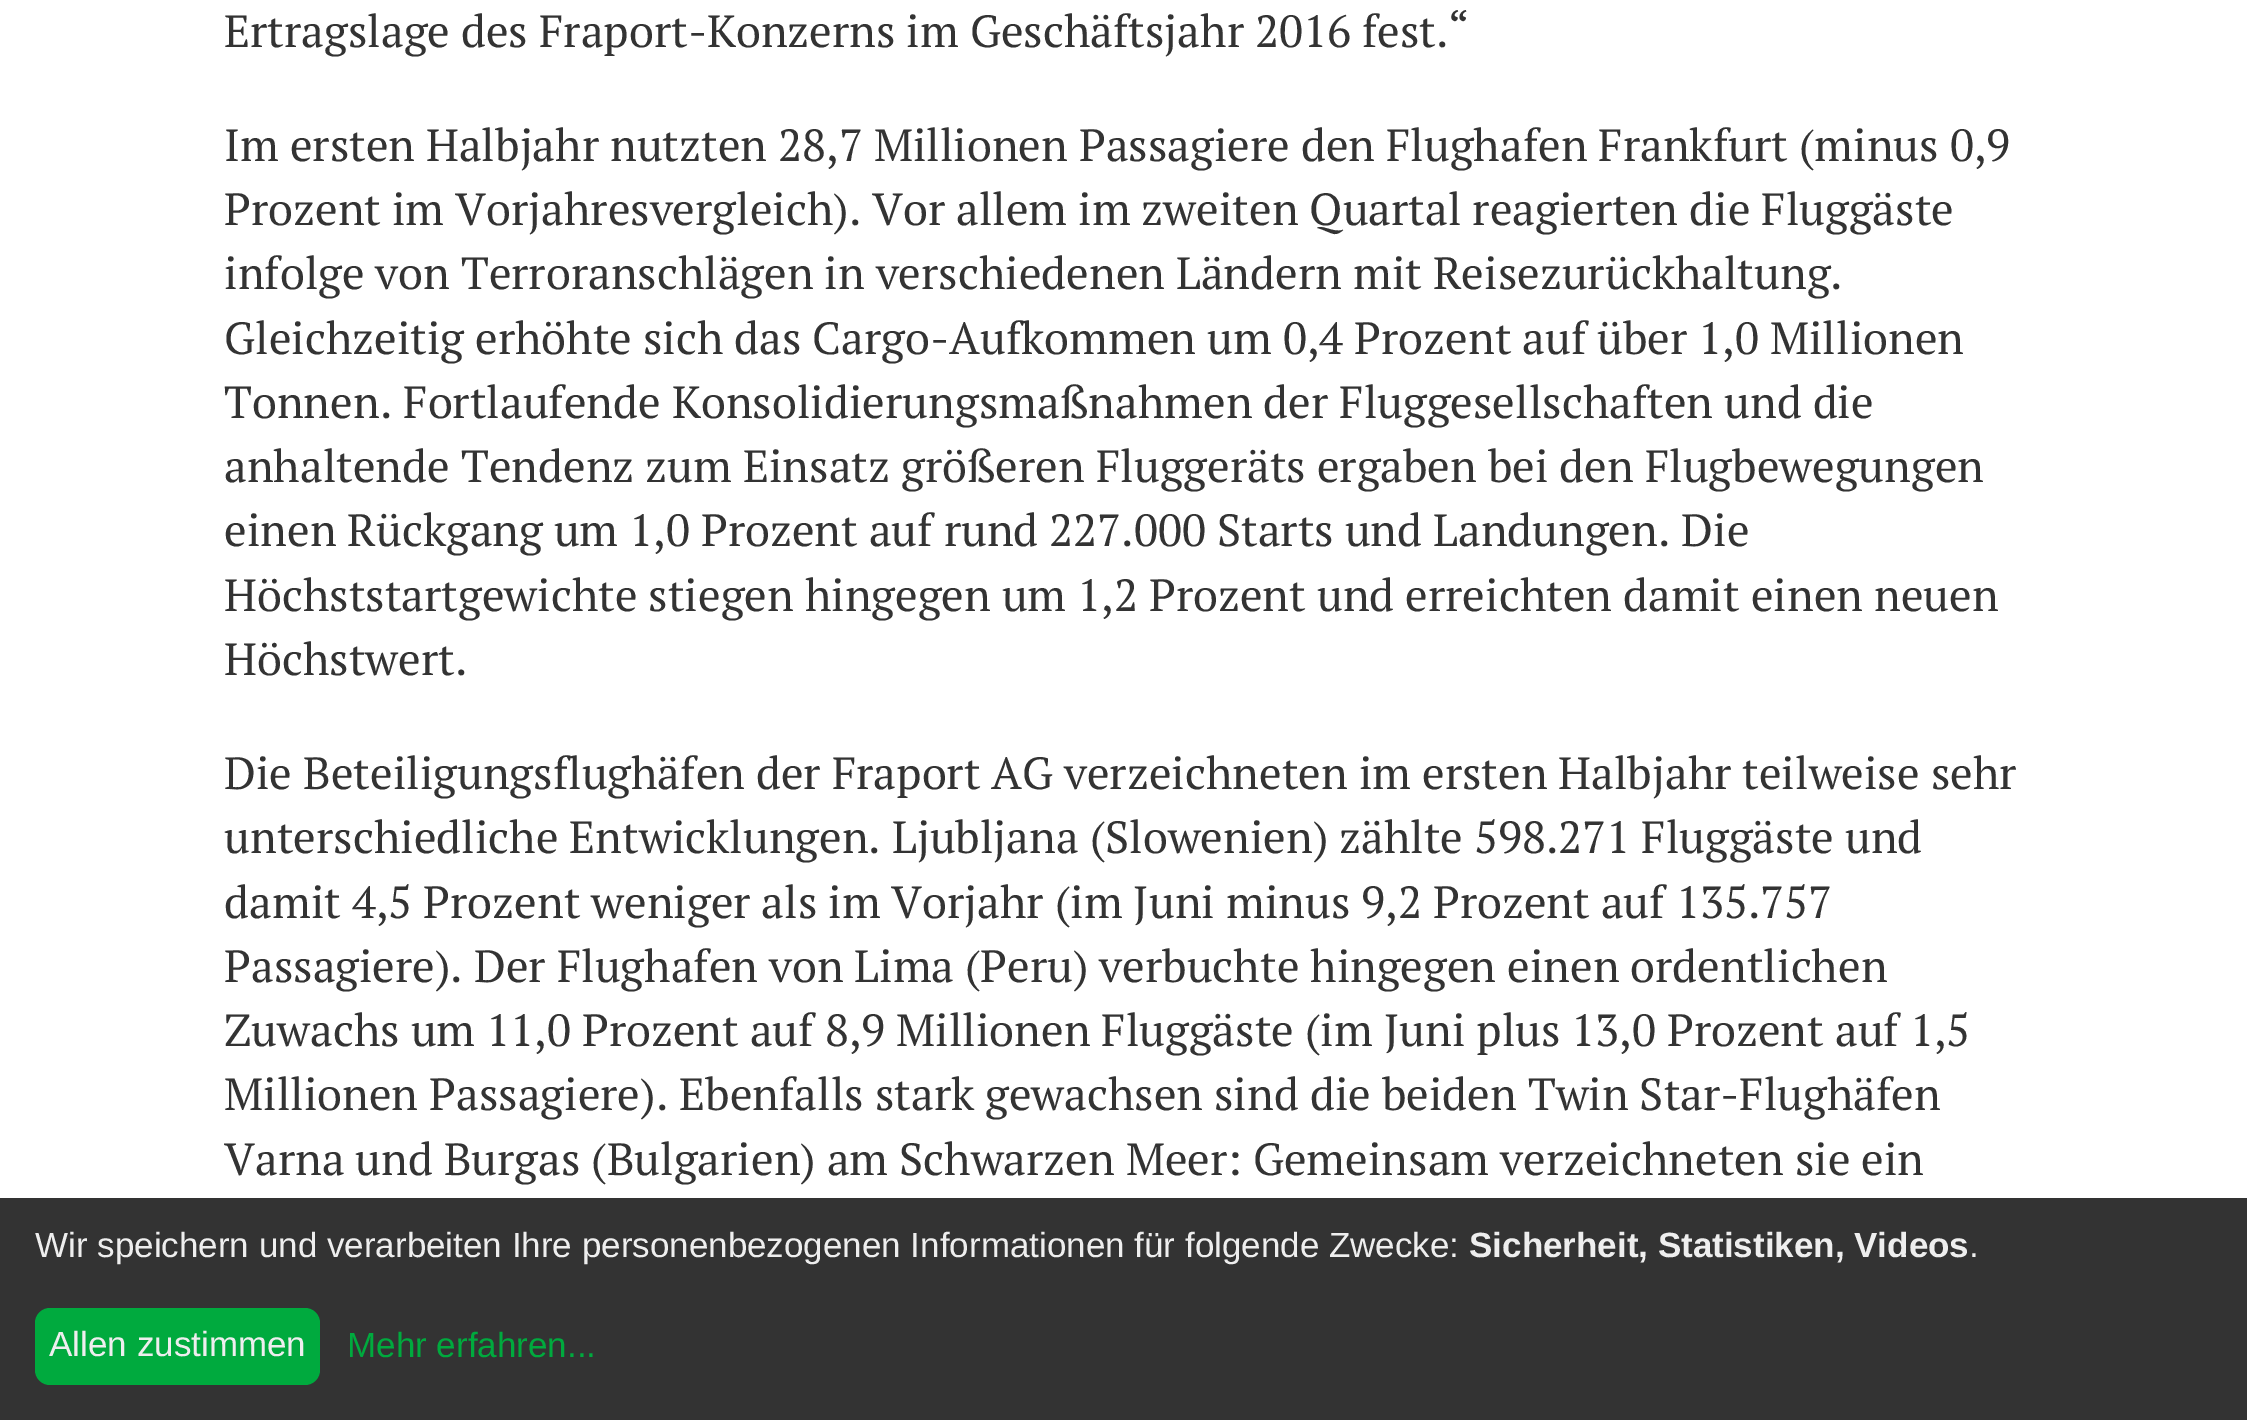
%!PS-Adobe-3.0
%%BoundingBox: 0 0 2247 1420
%%LanguageLevel: 3
%%Pages: 1
%%EndComments
%%BeginProlog
/setink { 3 { 255 div 3 1 roll } repeat setrgbcolor } def
/usefont { [ exch dup neg 0 0 3 -1 roll 0 0 ] selectfont } def
/drawtext { setink usefont moveto show } def
/fillbox { setink rectfill } def
/rrect { 5 dict begin { /r /h /w /y /x } { exch def } forall
  x r add y moveto x w add y 2 copy h add r arct x w add y h add x 1 index r arct
  x y h add x y r arct x y 2 copy exch w add exch r arct closepath end } def
%%EndProlog
%%BeginSetup
<< /PageSize [2247 1420] >> setpagedevice
%%EndSetup
%%Page: 1 1
0 1420 translate 1 -1 scale
4 setmiterlimit
0 0 2247 1420 255 255 255 fillbox
(Ertragslage des Fraport-Konzerns im Geschäftsjahr 2016 fest.“) 224 47 /PTSerif-Regular 45 51 51 51 drawtext
(Im ersten Halbjahr nutzten 28,7 Millionen Passagiere den Flughafen Frankfurt \(minus 0,9) 224 161 /PTSerif-Regular 45 51 51 51 drawtext
(Prozent im Vorjahresvergleich\). Vor allem im zweiten Quartal reagierten die Fluggäste) 224 225 /PTSerif-Regular 45 51 51 51 drawtext
(infolge von Terroranschlägen in verschiedenen Ländern mit Reisezurückhaltung.) 224 289 /PTSerif-Regular 45 51 51 51 drawtext
(Gleichzeitig erhöhte sich das Cargo-Aufkommen um 0,4 Prozent auf über 1,0 Millionen) 224 354 /PTSerif-Regular 45 51 51 51 drawtext
(Tonnen. Fortlaufende Konsolidierungsmaßnahmen der Fluggesellschaften und die) 224 418 /PTSerif-Regular 45 51 51 51 drawtext
(anhaltende Tendenz zum Einsatz größeren Fluggeräts ergaben bei den Flugbewegungen) 224 482 /PTSerif-Regular 45 51 51 51 drawtext
(einen Rückgang um 1,0 Prozent auf rund 227.000 Starts und Landungen. Die) 224 546 /PTSerif-Regular 45 51 51 51 drawtext
(Höchststartgewichte stiegen hingegen um 1,2 Prozent und erreichten damit einen neuen) 224 611 /PTSerif-Regular 45 51 51 51 drawtext
(Höchstwert.) 224 675 /PTSerif-Regular 45 51 51 51 drawtext
(Die Beteiligungsflughäfen der Fraport AG verzeichneten im ersten Halbjahr teilweise sehr) 224 789 /PTSerif-Regular 45 51 51 51 drawtext
(unterschiedliche Entwicklungen. Ljubljana \(Slowenien\) zählte 598.271 Fluggäste und) 224 853 /PTSerif-Regular 45 51 51 51 drawtext
(damit 4,5 Prozent weniger als im Vorjahr \(im Juni minus 9,2 Prozent auf 135.757) 224 918 /PTSerif-Regular 45 51 51 51 drawtext
(Passagiere\). Der Flughafen von Lima \(Peru\) verbuchte hingegen einen ordentlichen) 224 982 /PTSerif-Regular 45 51 51 51 drawtext
(Zuwachs um 11,0 Prozent auf 8,9 Millionen Fluggäste \(im Juni plus 13,0 Prozent auf 1,5) 224 1046 /PTSerif-Regular 45 51 51 51 drawtext
(Millionen Passagiere\). Ebenfalls stark gewachsen sind die beiden Twin Star-Flughäfen) 224 1110 /PTSerif-Regular 45 51 51 51 drawtext
(Varna und Burgas \(Bulgarien\) am Schwarzen Meer: Gemeinsam verzeichneten sie ein) 224 1175 /PTSerif-Regular 45 51 51 51 drawtext
0 1198 2247 222 51 51 51 fillbox
(Wir speichern und verarbeiten Ihre personenbezogenen Informationen für folgende Zwecke:) 35 1257 /LiberationSans-Regular 35 238 238 238 drawtext
(Sicherheit, Statistiken, Videos) 1469 1257 /LiberationSans-Bold 35 238 238 238 drawtext
(.) 1969 1257 /LiberationSans-Regular 35 238 238 238 drawtext
0 170 62 setink
35 1308 285 77 15 rrect fill
(Allen zustimmen) 49 1356 /LiberationSans-Regular 35 238 238 238 drawtext
(Mehr erfahren...) 347 1357 /LiberationSans-Regular 35 0 170 62 drawtext
showpage
%%EOF
